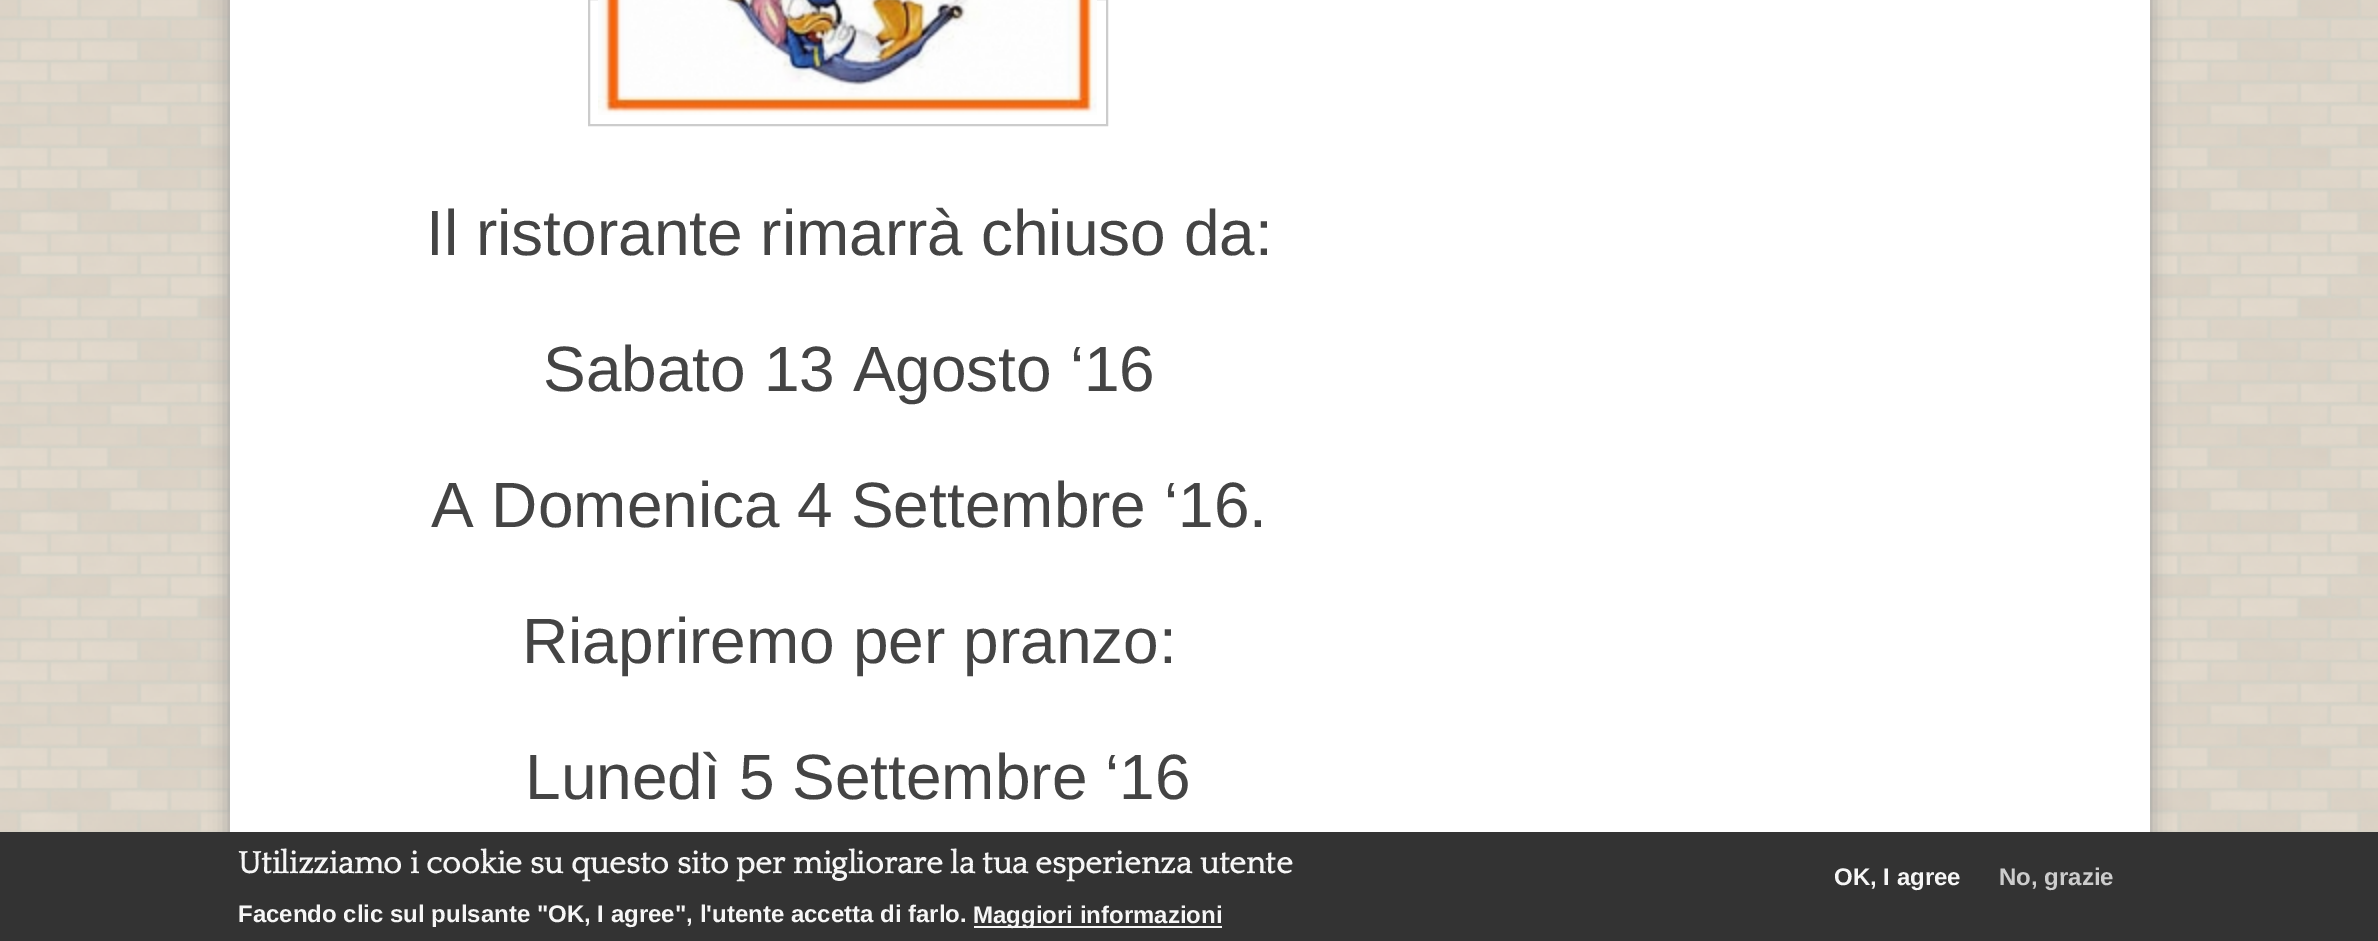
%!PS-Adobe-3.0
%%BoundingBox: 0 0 2378 941
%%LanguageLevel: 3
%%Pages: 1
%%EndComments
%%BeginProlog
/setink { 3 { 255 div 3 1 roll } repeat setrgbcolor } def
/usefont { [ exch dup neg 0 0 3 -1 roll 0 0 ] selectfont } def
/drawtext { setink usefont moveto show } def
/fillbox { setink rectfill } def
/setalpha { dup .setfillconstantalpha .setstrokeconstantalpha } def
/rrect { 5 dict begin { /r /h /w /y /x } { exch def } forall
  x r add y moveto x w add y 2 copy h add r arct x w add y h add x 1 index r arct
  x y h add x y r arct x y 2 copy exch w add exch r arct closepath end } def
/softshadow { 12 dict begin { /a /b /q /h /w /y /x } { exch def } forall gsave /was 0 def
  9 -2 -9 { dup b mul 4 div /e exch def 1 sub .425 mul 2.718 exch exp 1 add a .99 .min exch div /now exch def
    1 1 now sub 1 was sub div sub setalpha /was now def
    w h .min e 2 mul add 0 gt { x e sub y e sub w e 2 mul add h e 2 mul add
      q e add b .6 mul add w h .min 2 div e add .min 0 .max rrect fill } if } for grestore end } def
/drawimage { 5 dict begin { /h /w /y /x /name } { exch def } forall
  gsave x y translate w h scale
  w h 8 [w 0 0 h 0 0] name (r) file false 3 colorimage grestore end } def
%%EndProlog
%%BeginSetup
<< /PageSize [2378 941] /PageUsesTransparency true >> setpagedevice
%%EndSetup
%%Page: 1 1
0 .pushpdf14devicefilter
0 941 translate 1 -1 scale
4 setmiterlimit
0 0 2378 941 255 255 255 fillbox
(assets/img1.rgb) 0 0 2378 832 drawimage
153 153 153 setink
230 -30 1920 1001 0 10 1 softshadow
230 0 1920 832 255 255 255 fillbox
204 204 204 setink
2 setlinewidth
589 -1 518 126 rectstroke
(assets/img2.rgb) 598 0 499 115 drawimage
(Il ristorante rimarrà chiuso da:) 426 255 /LiberationSans-Regular 64 68 68 68 drawtext
(Sabato 13 Agosto ‘16) 543 391 /LiberationSans-Regular 64 68 68 68 drawtext
(A Domenica 4 Settembre ‘16.) 431 527 /LiberationSans-Regular 64 68 68 68 drawtext
(Riapriremo per pranzo:) 522 663 /LiberationSans-Regular 64 68 68 68 drawtext
(Lunedì 5 Settembre ‘16) 525 799 /LiberationSans-Regular 64 68 68 68 drawtext
0 832 2378 109 51 51 51 fillbox
(Utilizziamo i cookie su questo sito per migliorare la tua esperienza utente) 238 873 /Quattrocento-Bold 32 246 246 246 drawtext
(Facendo clic sul pulsante "OK, I agree", l'utente accetta di farlo.) 238 922 /LiberationSans-Bold 24 246 246 246 drawtext
974 926 248 2 246 246 246 fillbox
(Maggiori informazioni) 973 923 /LiberationSans-Bold 24 246 246 246 drawtext
(OK, I agree) 1834 885 /LiberationSans-Bold 24 246 246 246 drawtext
(No, grazie) 1999 885 /LiberationSans-Bold 24 204 204 204 drawtext
.poppdf14devicefilter showpage
%%EOF
